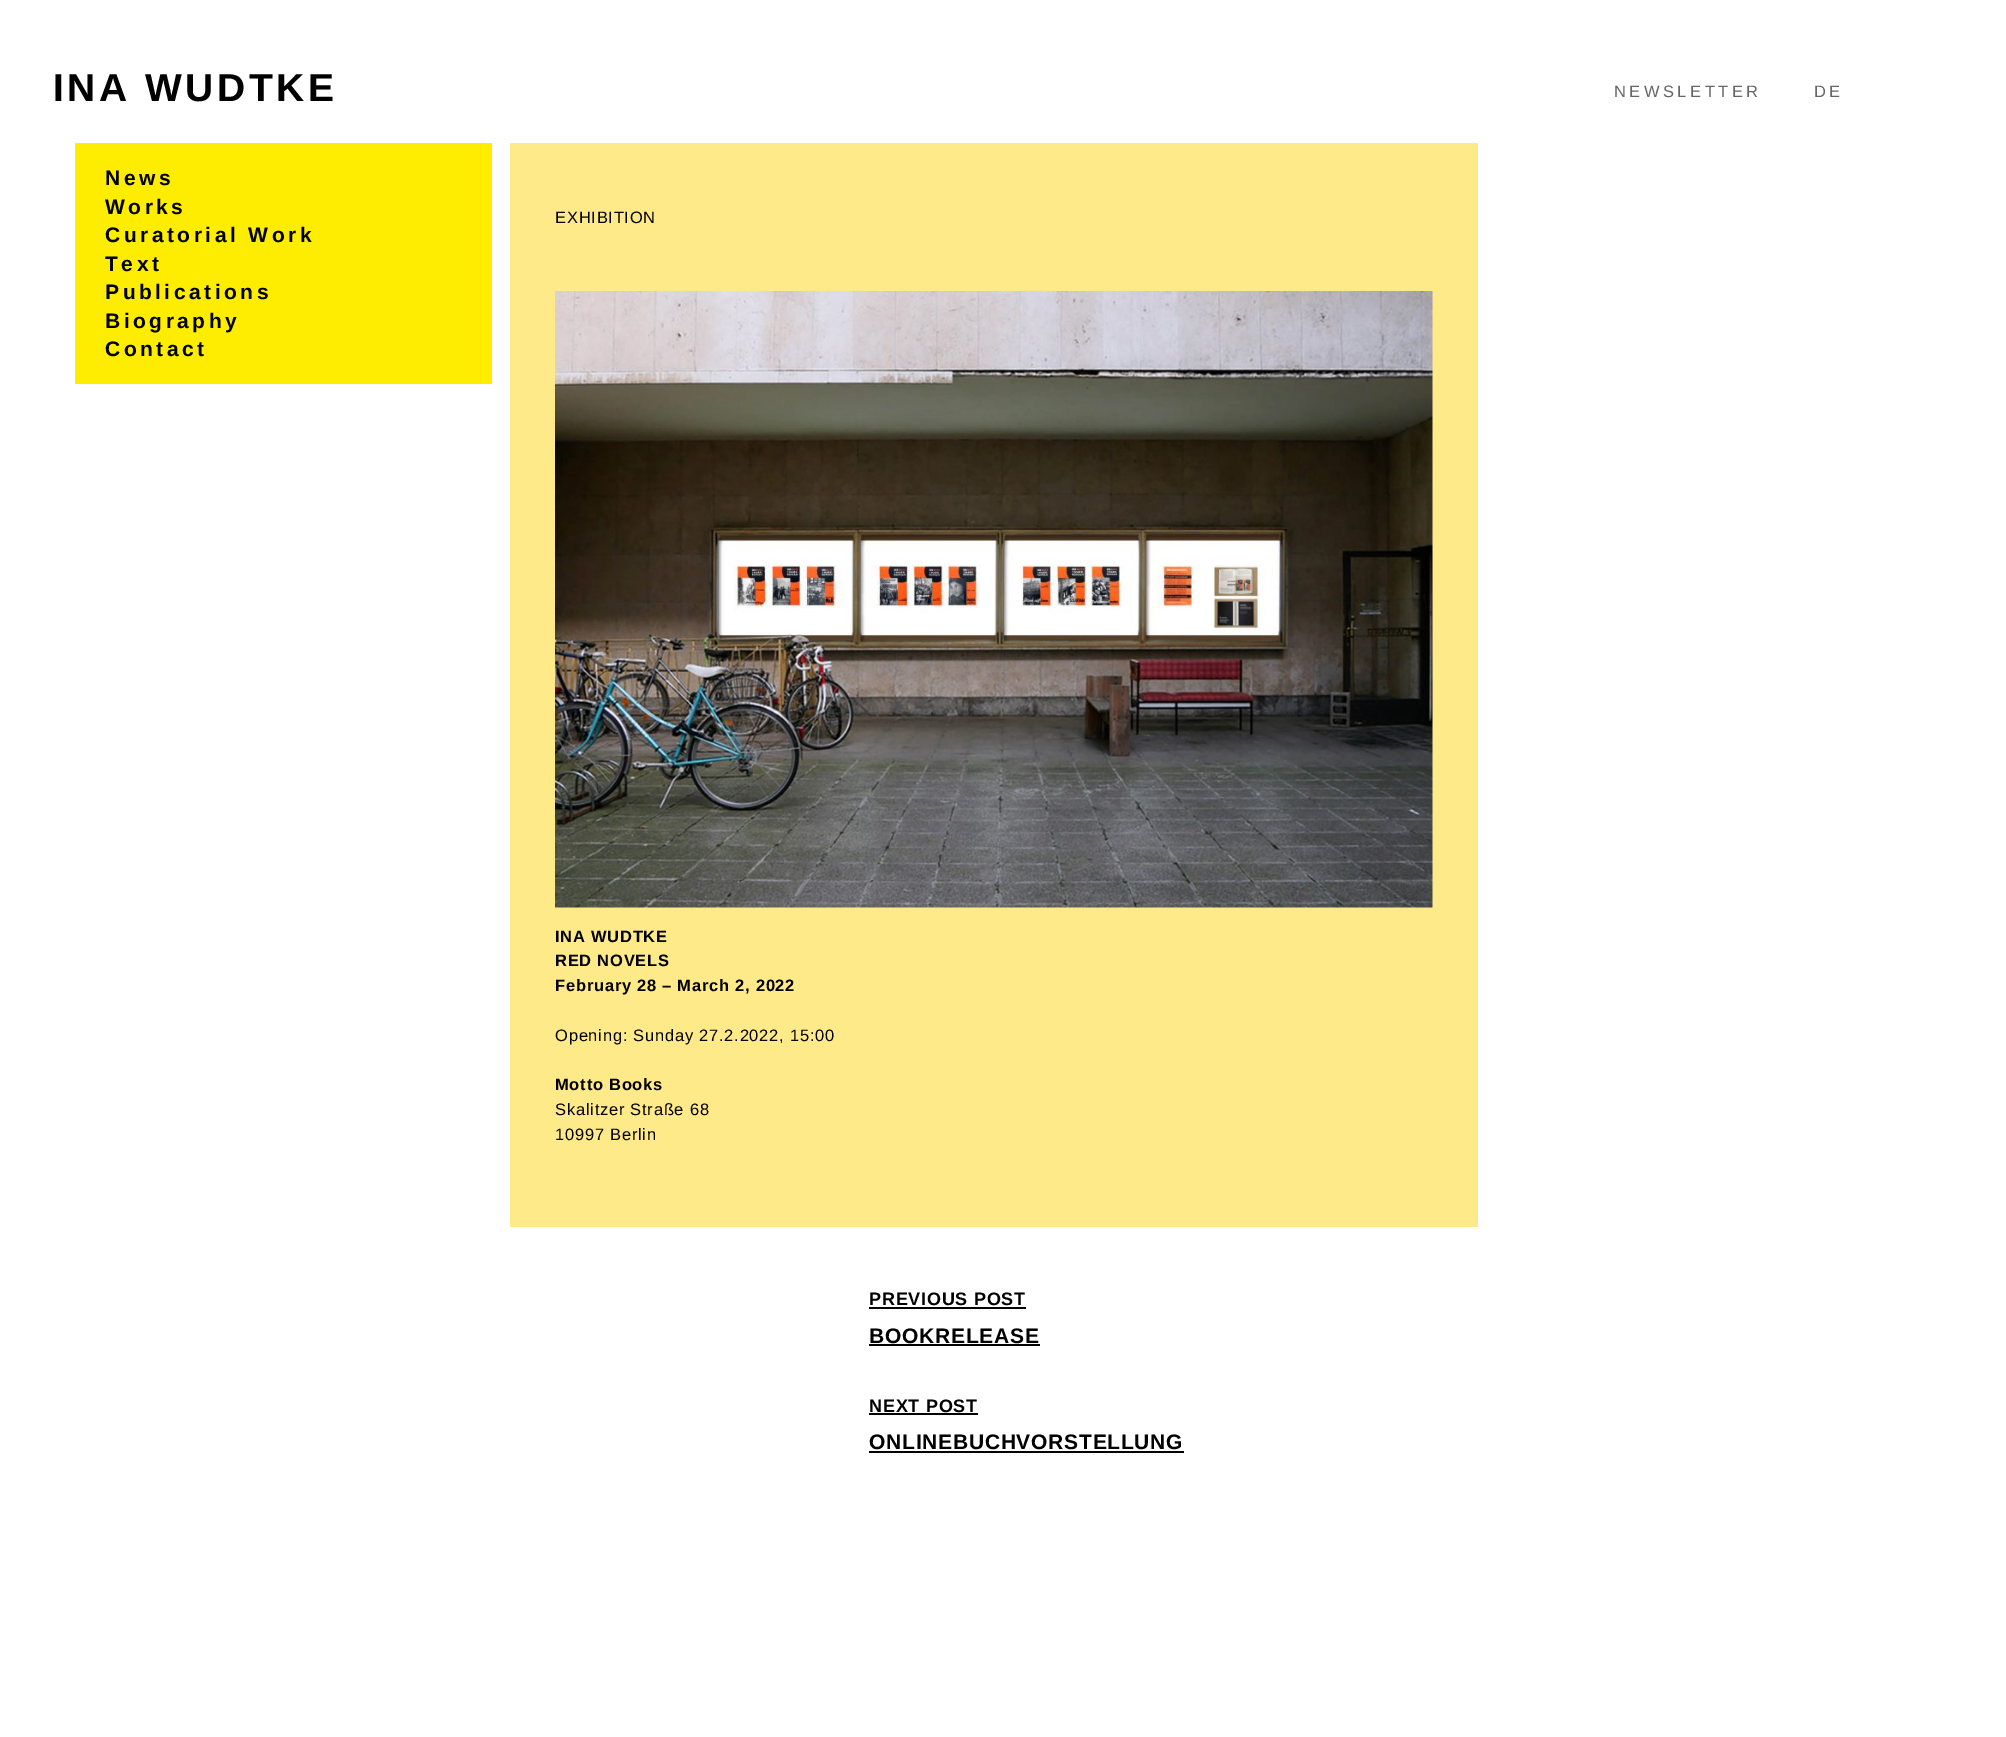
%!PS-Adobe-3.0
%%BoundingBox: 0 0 2006 1737
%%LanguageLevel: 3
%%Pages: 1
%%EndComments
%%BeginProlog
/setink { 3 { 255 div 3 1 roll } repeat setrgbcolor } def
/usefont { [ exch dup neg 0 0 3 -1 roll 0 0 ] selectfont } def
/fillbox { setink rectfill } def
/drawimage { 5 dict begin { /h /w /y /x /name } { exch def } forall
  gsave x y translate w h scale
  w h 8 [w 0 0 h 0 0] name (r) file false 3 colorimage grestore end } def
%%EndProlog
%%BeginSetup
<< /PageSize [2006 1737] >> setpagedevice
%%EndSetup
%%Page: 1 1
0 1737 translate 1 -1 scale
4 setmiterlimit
0 0 2006 1737 255 255 255 fillbox
/LiberationSans-Bold 39 usefont
0 0 0 setink
53 101 moveto 3.5 0 (INA WUDTKE) ashow
/LiberationSans-Regular 16.5 usefont
102 102 102 setink
1614 97 moveto 3.5 0 (NEWSLETTER) ashow
1814 97 moveto 3.5 0 (DE) ashow
75 143 417 241 255 237 0 fillbox
/LiberationSans-Bold 21 usefont
0 0 0 setink
105 185 moveto 3.5 0 (News) ashow
105 214 moveto 3.5 0 (Works) ashow
105 242 moveto 3.5 0 (Curatorial Work) ashow
105 271 moveto 3.5 0 (Text) ashow
105 299 moveto 3.5 0 (Publications) ashow
105 328 moveto 3.5 0 (Biography) ashow
105 356 moveto 3.5 0 (Contact) ashow
510 143 968 1084 255 234 137 fillbox
/LiberationSans-Regular 16.5 usefont
0 0 0 setink
555 223 moveto 0.75 0 (EXHIBITION) ashow
(assets/img1.rgb) 555 291 878 617 drawimage
/LiberationSans-Bold 16.5 usefont
555 942 moveto 0.75 0 (INA WUDTKE) ashow
555 966 moveto 0.75 0 (RED NOVELS) ashow
555 991 moveto 0.75 0 (February 28 – March 2, 2022) ashow
/LiberationSans-Regular 16.5 usefont
555 1041 moveto 0.75 0 (Opening: Sunday 27.2.2022, 15:00) ashow
/LiberationSans-Bold 16.5 usefont
555 1090 moveto 0.75 0 (Motto Books) ashow
/LiberationSans-Regular 16.5 usefont
555 1115 moveto 0.75 0 (Skalitzer Straße 68) ashow
555 1140 moveto 0.75 0 (10997 Berlin) ashow
/LiberationSans-Bold 18 usefont
869 1305 moveto 0.75 0 (PREVIOUS POST) ashow
869 1307 157 2 0 0 0 fillbox
/LiberationSans-Bold 21 usefont
869 1343 moveto 0.75 0 (BOOKRELEASE) ashow
869 1344 171 2 0 0 0 fillbox
/LiberationSans-Bold 18 usefont
869 1412 moveto 0.75 0 (NEXT POST) ashow
869 1413 109 2 0 0 0 fillbox
/LiberationSans-Bold 21 usefont
869 1449 moveto 0.75 0 (ONLINEBUCHVORSTELLUNG) ashow
869 1451 315 2 0 0 0 fillbox
showpage
%%EOF
